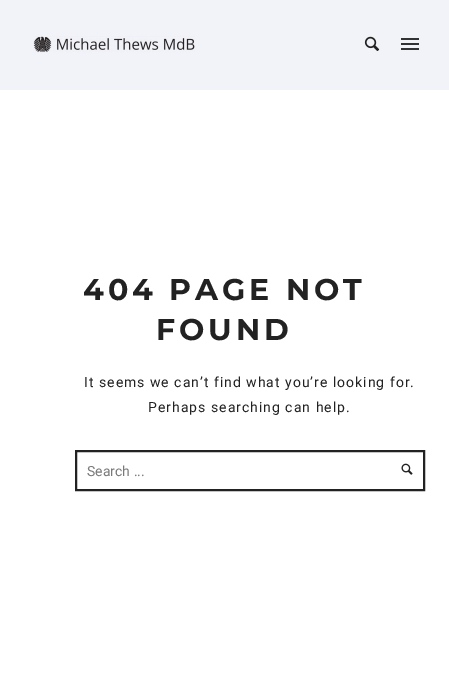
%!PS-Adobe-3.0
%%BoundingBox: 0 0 449 700
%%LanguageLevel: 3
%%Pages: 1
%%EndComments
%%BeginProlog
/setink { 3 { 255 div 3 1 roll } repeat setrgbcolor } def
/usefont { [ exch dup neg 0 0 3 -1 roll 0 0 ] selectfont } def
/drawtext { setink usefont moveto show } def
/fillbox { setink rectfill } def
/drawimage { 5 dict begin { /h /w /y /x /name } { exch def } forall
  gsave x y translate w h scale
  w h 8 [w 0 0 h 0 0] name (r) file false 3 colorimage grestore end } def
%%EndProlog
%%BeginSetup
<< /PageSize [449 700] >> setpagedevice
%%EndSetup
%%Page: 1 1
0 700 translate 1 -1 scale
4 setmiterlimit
0 0 449 700 255 255 255 fillbox
0 0 449 90 242 243 248 fillbox
(assets/img1.rgb) 33 36 162 17 drawimage
(assets/img2.rgb) 364 36 16 15 drawimage
401 38 18 2 50 50 50 fillbox
401 43 18 2 50 50 50 fillbox
401 48 18 2 50 50 50 fillbox
/Montserrat-Thin 30 usefont
34 34 34 setink
83 300 moveto 4 0 (404 PAGE NOT) ashow
156 340 moveto 4 0 (FOUND) ashow
/Roboto-Regular 14 usefont
84 387 moveto 1 0 (It seems we can’t find what you’re looking for.) ashow
148 412 moveto 1 0 (Perhaps searching can help.) ashow
2 setlinewidth
76 451 348 39 rectstroke
(Search ...) 87 476 /Roboto-Regular 14 122 122 122 drawtext
(assets/img3.rgb) 401 463 12 12 drawimage
showpage
%%EOF
